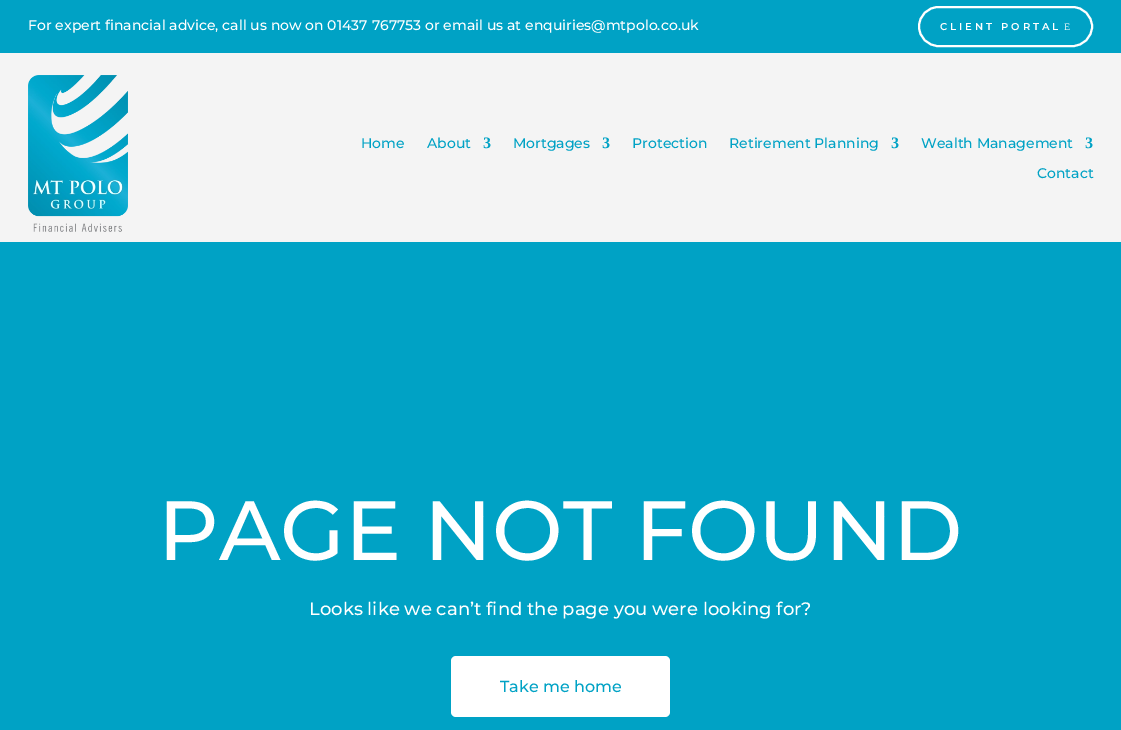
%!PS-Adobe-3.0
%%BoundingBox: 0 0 1121 730
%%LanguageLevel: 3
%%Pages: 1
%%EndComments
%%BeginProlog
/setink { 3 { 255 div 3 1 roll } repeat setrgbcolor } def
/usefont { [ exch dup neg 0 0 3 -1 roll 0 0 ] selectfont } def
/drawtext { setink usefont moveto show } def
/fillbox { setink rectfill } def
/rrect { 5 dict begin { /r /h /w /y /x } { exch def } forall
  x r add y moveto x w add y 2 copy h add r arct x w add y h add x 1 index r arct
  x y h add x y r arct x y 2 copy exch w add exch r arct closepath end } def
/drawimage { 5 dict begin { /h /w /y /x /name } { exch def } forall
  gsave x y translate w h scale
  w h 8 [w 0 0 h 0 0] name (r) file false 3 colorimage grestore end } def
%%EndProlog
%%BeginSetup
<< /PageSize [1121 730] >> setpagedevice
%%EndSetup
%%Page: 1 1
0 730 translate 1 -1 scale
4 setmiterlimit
0 0 1121 730 0 162 197 fillbox
(For expert financial advice, call us now on 01437 767753 or email us at enquiries@mtpolo.co.uk) 28 30 /Montserrat-Medium 14 255 255 255 drawtext
2 setlinewidth
919 7 173 39 19.5 rrect stroke
/Montserrat-SemiBold 10 usefont
940 30 moveto 3 0 (CLIENT PORTAL) ashow
/LiberationSerif-Regular 10 usefont
1064 30 moveto 3 0 (E) ashow
0 53 1121 189 244 244 244 fillbox
(assets/img1.rgb) 28 75 100 157 drawimage
(Home) 361 148 /Montserrat-Medium 14 0 162 197 drawtext
(About) 427 148 /Montserrat-Medium 14 0 162 197 drawtext
(3) 483 148 /LiberationSerif-Bold 16 0 162 197 drawtext
(Mortgages) 513 148 /Montserrat-Medium 14 0 162 197 drawtext
(3) 602 148 /LiberationSerif-Bold 16 0 162 197 drawtext
(Protection) 632 148 /Montserrat-Medium 14 0 162 197 drawtext
(Retirement Planning) 729 148 /Montserrat-Medium 14 0 162 197 drawtext
(3) 891 148 /LiberationSerif-Bold 16 0 162 197 drawtext
(Wealth Management) 921 148 /Montserrat-Medium 14 0 162 197 drawtext
(3) 1085 148 /LiberationSerif-Bold 16 0 162 197 drawtext
(Contact) 1037 178 /Montserrat-Medium 14 0 162 197 drawtext
(PAGE NOT FOUND) 158 560 /Montserrat-Medium 84 255 255 255 drawtext
(Looks like we can’t find the page you were looking for?) 309 615 /Montserrat-Medium 18 255 255 255 drawtext
451 656 219 61 5 rrect fill
(Take me home) 500 692 /Montserrat-Medium 16 0 162 197 drawtext
showpage
%%EOF
